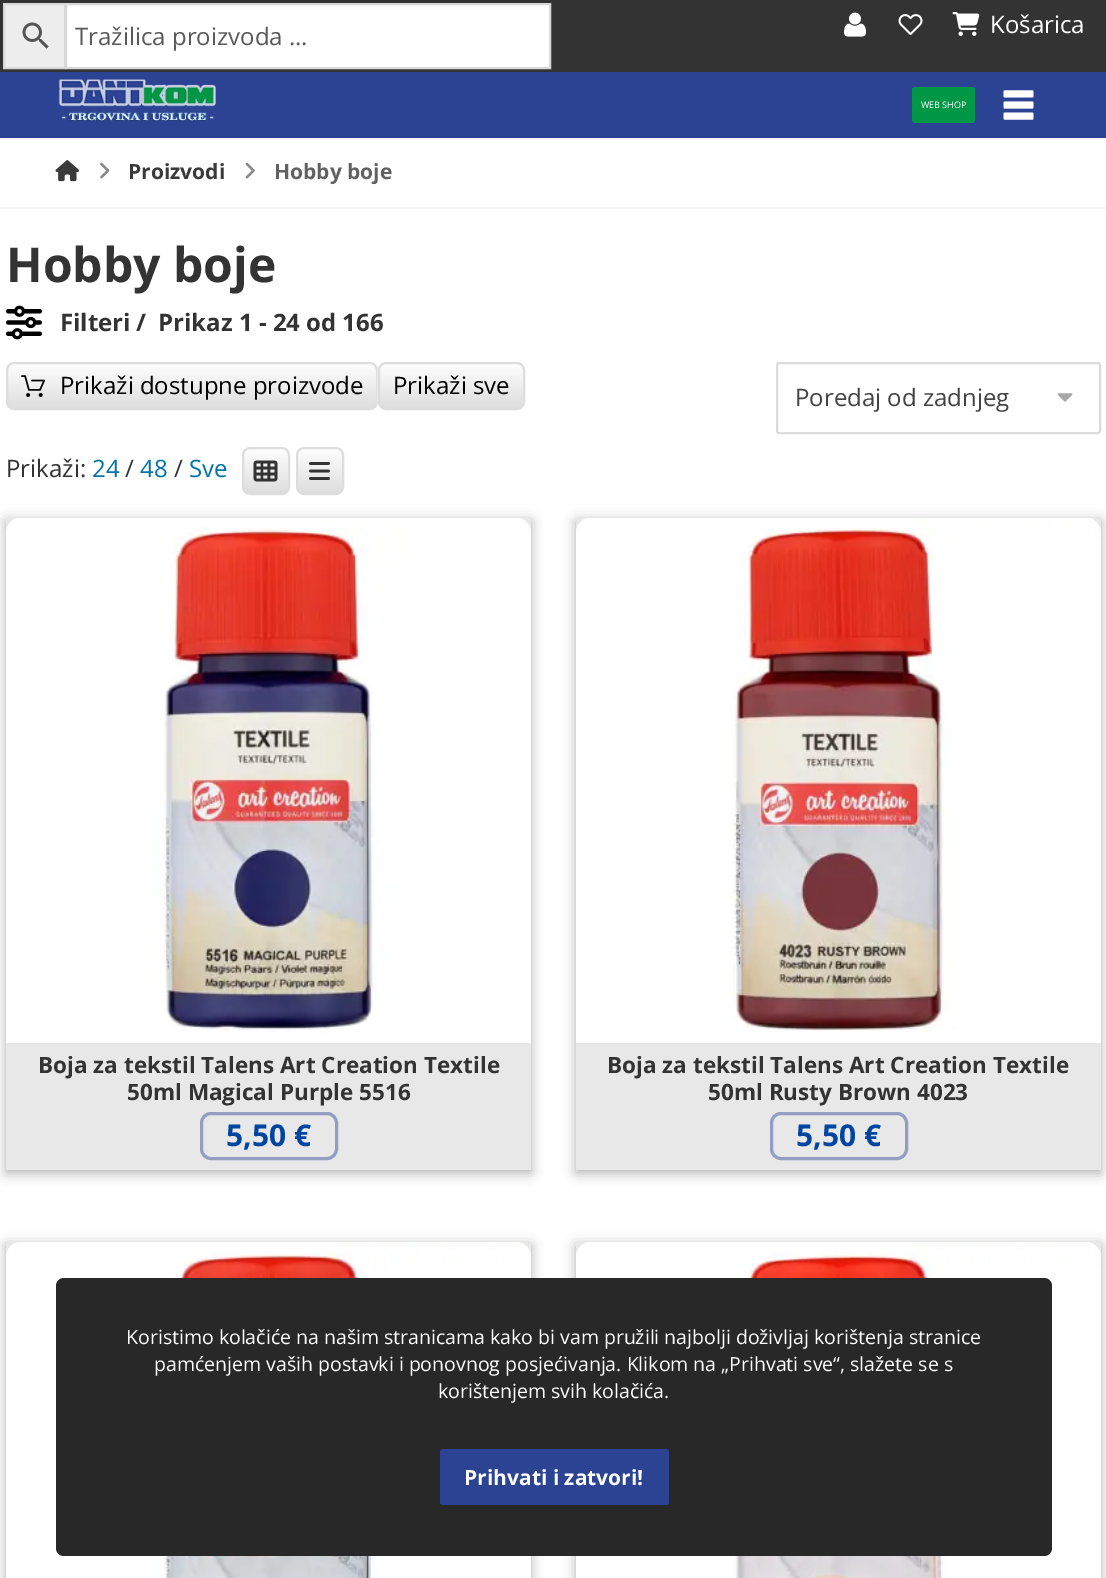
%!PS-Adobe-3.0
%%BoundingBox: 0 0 1106 1578
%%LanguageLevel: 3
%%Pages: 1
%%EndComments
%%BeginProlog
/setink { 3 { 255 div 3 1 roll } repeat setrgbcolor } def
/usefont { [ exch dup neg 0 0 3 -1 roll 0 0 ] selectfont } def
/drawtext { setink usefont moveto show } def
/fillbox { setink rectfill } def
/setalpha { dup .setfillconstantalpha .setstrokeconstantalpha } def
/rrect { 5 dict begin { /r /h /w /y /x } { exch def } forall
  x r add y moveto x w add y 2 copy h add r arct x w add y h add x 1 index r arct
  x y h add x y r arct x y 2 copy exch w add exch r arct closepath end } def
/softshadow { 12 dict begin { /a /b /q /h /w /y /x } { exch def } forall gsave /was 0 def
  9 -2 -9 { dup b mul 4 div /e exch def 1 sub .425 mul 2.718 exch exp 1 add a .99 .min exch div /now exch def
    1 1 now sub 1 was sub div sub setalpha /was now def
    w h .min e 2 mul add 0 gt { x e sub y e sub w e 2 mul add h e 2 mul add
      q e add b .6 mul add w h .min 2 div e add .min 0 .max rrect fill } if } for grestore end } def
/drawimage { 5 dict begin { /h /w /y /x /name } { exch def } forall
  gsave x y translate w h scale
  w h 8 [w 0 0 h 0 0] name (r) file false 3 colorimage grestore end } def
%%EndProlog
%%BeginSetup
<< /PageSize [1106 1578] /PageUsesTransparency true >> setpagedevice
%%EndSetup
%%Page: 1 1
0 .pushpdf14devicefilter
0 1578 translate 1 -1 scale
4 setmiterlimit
0 0 1106 1578 255 255 255 fillbox
0 0 1106 72 51 51 51 fillbox
(assets/img1.rgb) 844 12 22 25 drawimage
(assets/img2.rgb) 898 14 25 22 drawimage
(assets/img3.rgb) 952 12 28 24 drawimage
(Košarica) 990 33 /OpenSans-Regular 24 255 255 255 drawtext
237 237 237 setink
4 4 moveto 65 4 lineto 65 68 lineto 4 68 lineto closepath gsave fill grestore
216 216 216 setink
2 setlinewidth
stroke
(assets/img4.rgb) 22 22 27 27 drawimage
255 255 255 setink
66 4 moveto 550 4 lineto 550 68 lineto 66 68 lineto closepath gsave fill grestore
216 216 216 setink
stroke
(Tražilica proizvoda ...) 75 45 /OpenSans-Regular 24 90 90 90 drawtext
0 72 1106 66 44 67 147 fillbox
0 138 1106 2 244 244 244 fillbox
(assets/img5.rgb) 58 79 158 43 drawimage
0 151 70 setink
912 87 63 36 3 rrect fill
(WEB SHOP) 921 108 /OpenSans-Regular 9 255 255 255 drawtext
(assets/img6.rgb) 1003 90 31 30 drawimage
0 207 1106 2 244 244 244 fillbox
(assets/img7.rgb) 55 160 25 22 drawimage
(assets/img8.rgb) 100 162 10 17 drawimage
(Proizvodi) 128 179 /OpenSans-Bold 21 58 58 58 drawtext
(assets/img9.rgb) 245 162 10 17 drawimage
(Hobby boje) 274 179 /OpenSans-Bold 21 97 97 97 drawtext
(Hobby boje) 6 282 /OpenSans-Bold 48 51 51 51 drawtext
(assets/img10.rgb) 6 305 36 35 drawimage
(Filteri) 60 331 /OpenSans-Bold 24 51 51 51 drawtext
(/) 136 331 /OpenSans-Bold 24 51 51 51 drawtext
(Prikaz 1 - 24 od 166) 158 331 /OpenSans-Bold 24 51 51 51 drawtext
gsave 7 363 370 46 7 rrect clip newpath
<< /ShadingType 2 /ColorSpace /DeviceRGB /Coords [192 362 192 410] /Extend [true true] /Function << /FunctionType 2 /Domain [0 1] /C0 [1 1 1] /C1 [0.863 0.863 0.863] /N 1 >> >> shfill grestore
221 221 221 setink
7 363 370 46 7 rrect stroke
(assets/img11.rgb) 21 375 24 22 drawimage
(Prikaži dostupne proizvode) 60 394 /OpenSans-Regular 24 0 0 0 drawtext
255 255 255 setink
378 363 147 48 8 1 1 softshadow
gsave 379 363 145 46 7 rrect clip newpath
<< /ShadingType 2 /ColorSpace /DeviceRGB /Coords [452 362 452 410] /Extend [true true] /Function << /FunctionType 2 /Domain [0 1] /C0 [1 1 1] /C1 [0.863 0.863 0.863] /N 1 >> >> shfill grestore
221 221 221 setink
379 363 145 46 7 rrect stroke
(Prikaži sve) 393 394 /OpenSans-Regular 24 0 0 0 drawtext
(assets/img12.rgb) 1058 393 15 9 drawimage
220 220 220 setink
777 363 323 70 2 rrect stroke
(Poredaj od zadnjeg) 795 406 /OpenSans-Regular 24 68 68 68 drawtext
(Prikaži:) 6 477 /OpenSans-Regular 24 51 51 51 drawtext
(24) 92 477 /OpenSans-Regular 24 0 115 170 drawtext
(/) 125 477 /OpenSans-Regular 24 51 51 51 drawtext
(48) 140 477 /OpenSans-Regular 24 0 115 170 drawtext
(/) 174 477 /OpenSans-Regular 24 51 51 51 drawtext
(Sve) 189 477 /OpenSans-Regular 24 0 115 170 drawtext
gsave 243 448 46 46 7 rrect clip newpath
<< /ShadingType 2 /ColorSpace /DeviceRGB /Coords [266 447 266 495] /Extend [true true] /Function << /FunctionType 2 /Domain [0 1] /C0 [1 1 1] /C1 [0.863 0.863 0.863] /N 1 >> >> shfill grestore
221 221 221 setink
243 448 46 46 7 rrect stroke
(assets/img13.rgb) 253 460 25 22 drawimage
gsave 297 448 46 46 7 rrect clip newpath
<< /ShadingType 2 /ColorSpace /DeviceRGB /Coords [320 447 320 495] /Extend [true true] /Function << /FunctionType 2 /Domain [0 1] /C0 [1 1 1] /C1 [0.863 0.863 0.863] /N 1 >> >> shfill grestore
297 448 46 46 7 rrect stroke
(assets/img14.rgb) 309 462 21 18 drawimage
0 0 0 setink
6 521 525 652 0 6 0.32 softshadow
6 518 525 652 232 232 232 fillbox
255 255 255 setink
21 518 moveto 516 518 lineto 524.5 518 531 524.5 531 533 curveto 531 1043 lineto 6 1043 lineto 6 533 lineto 6 524.5 12.5 518 21 518 curveto closepath fill
(assets/img15.rgb) 6 518 525 515 drawimage
(Boja za tekstil Talens Art Creation Textile) 38 1073 /OpenSans-Bold 22.5 51 51 51 drawtext
(50ml Magical Purple 5516) 127 1100 /OpenSans-Bold 22.5 51 51 51 drawtext
147 158 194 setink
3 setlinewidth
201.5 1113.5 135 45 9.5 rrect stroke
(5,50 €) 226 1146 /OpenSans-Bold 30 0 69 160 drawtext
0 0 0 setink
576 521 525 652 0 6 0.32 softshadow
576 518 525 652 232 232 232 fillbox
255 255 255 setink
591 518 moveto 1086 518 lineto 1094.5 518 1101 524.5 1101 533 curveto 1101 1043 lineto 576 1043 lineto 576 533 lineto 576 524.5 582.5 518 591 518 curveto closepath fill
(assets/img16.rgb) 576 518 525 514 drawimage
(Boja za tekstil Talens Art Creation Textile) 607 1073 /OpenSans-Bold 22.5 51 51 51 drawtext
(50ml Rusty Brown 4023) 708 1100 /OpenSans-Bold 22.5 51 51 51 drawtext
147 158 194 setink
771.5 1113.5 135 45 9.5 rrect stroke
(5,50 €) 796 1146 /OpenSans-Bold 30 0 69 160 drawtext
0 0 0 setink
6 1245 525 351 0 6 0.32 softshadow
6 1242 525 15 232 232 232 fillbox
(assets/img17.rgb) 6 1242 525 336 drawimage
0 0 0 setink
576 1245 525 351 0 6 0.32 softshadow
576 1242 525 15 232 232 232 fillbox
(assets/img18.rgb) 576 1242 525 336 drawimage
40 40 40 setink
56 1278 996 278 8 rrect fill
(Koristimo kolačiće na našim stranicama kako bi vam pružili najbolji doživljaj korištenja stranice) 126 1344 /OpenSans-Regular 19.5 255 255 255 drawtext
(pamćenjem vaših postavki i ponovnog posjećivanja. Klikom na „Prihvati sve“, slažete se s) 154 1371 /OpenSans-Regular 19.5 255 255 255 drawtext
(korištenjem svih kolačića.) 438 1398 /OpenSans-Regular 19.5 255 255 255 drawtext
44 67 147 setink
440 1449 229 56 3 rrect fill
(Prihvati i zatvori!) 464 1485 /OpenSans-Bold 21 255 255 255 drawtext
.poppdf14devicefilter showpage
%%EOF
